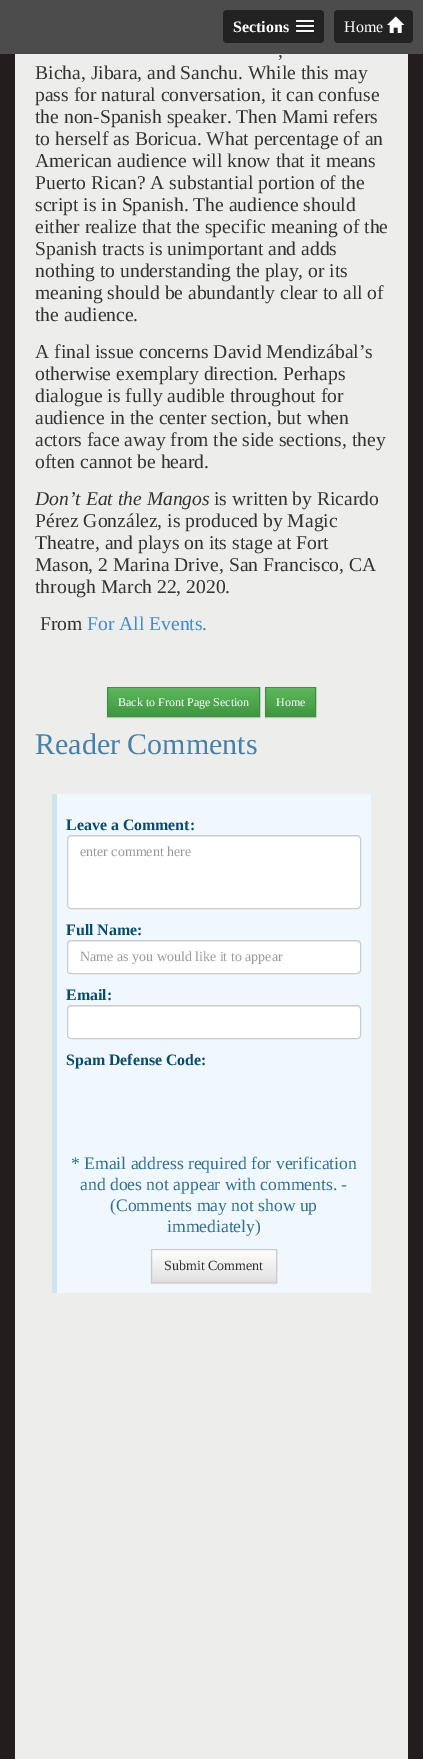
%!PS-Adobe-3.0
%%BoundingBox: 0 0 423 1759
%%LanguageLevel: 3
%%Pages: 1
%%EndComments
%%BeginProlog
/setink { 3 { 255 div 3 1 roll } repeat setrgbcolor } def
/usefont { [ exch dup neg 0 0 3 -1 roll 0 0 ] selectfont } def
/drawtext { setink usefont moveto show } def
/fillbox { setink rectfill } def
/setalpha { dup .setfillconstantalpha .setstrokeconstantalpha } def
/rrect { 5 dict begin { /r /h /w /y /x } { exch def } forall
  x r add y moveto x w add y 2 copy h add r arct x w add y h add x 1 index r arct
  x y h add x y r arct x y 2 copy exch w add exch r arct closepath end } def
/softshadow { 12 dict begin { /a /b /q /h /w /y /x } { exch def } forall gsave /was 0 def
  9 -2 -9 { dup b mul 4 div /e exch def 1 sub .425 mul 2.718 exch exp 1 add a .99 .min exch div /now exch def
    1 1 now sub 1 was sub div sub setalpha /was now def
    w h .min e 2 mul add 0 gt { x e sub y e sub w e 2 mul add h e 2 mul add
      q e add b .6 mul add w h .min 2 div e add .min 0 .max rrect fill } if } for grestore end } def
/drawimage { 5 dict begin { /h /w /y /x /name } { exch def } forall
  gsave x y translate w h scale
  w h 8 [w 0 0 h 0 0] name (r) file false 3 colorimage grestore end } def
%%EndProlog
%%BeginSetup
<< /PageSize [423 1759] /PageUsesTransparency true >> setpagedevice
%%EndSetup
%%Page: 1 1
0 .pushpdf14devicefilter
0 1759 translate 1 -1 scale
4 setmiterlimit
0 0 423 1759 35 29 29 fillbox
0 0 423 54 76 76 76 fillbox
34 34 34 setink
223 10 101 33 4 rrect fill
(Sections) 233 32 /LiberationSerif-Bold 16 255 255 255 drawtext
26 26 26 setink
296 21.5 moveto 295 23.5 299.5 23 299.5 23 curveto 310.5 23 lineto 310.5 23 315 23.5 314 21.5 curveto 313 22.5 306.5 22 305 22 curveto 303.5 22 297 22.5 296 21.5 curveto closepath fill
245 245 245 setink
296 20 18 2 1 rrect fill
26 26 26 setink
296 26.5 moveto 295 28.5 299.5 28 299.5 28 curveto 310.5 28 lineto 310.5 28 315 28.5 314 26.5 curveto 313 27.5 306.5 27 305 27 curveto 303.5 27 297 27.5 296 26.5 curveto closepath fill
245 245 245 setink
296 25 18 2 1 rrect fill
26 26 26 setink
296 31.5 moveto 295 33.5 299.5 33 299.5 33 curveto 310.5 33 lineto 310.5 33 315 33.5 314 31.5 curveto 313 32.5 306.5 32 305 32 curveto 303.5 32 297 32.5 296 31.5 curveto closepath fill
245 245 245 setink
296 30 18 2 1 rrect fill
34 34 34 setink
334 10 79 33 4 rrect fill
(Home) 344 32 /LiberationSerif-Regular 16 255 255 255 drawtext
(assets/img1.rgb) 387 16 18 17 drawimage
15 54 393 1705 237 237 236 fillbox
(,) 278 57 /LiberationSerif-Regular 19.6 51 51 51 drawtext
(Bicha, Jibara, and Sanchu. While this may) 35 79 /LiberationSerif-Regular 19.6 51 51 51 drawtext
(pass for natural conversation, it can confuse) 35 101 /LiberationSerif-Regular 19.6 51 51 51 drawtext
(the non-Spanish speaker. Then Mami refers) 35 123 /LiberationSerif-Regular 19.6 51 51 51 drawtext
(to herself as Boricua. What percentage of an) 35 145 /LiberationSerif-Regular 19.6 51 51 51 drawtext
(American audience will know that it means) 35 167 /LiberationSerif-Regular 19.6 51 51 51 drawtext
(Puerto Rican? A substantial portion of the) 35 189 /LiberationSerif-Regular 19.6 51 51 51 drawtext
(script is in Spanish. The audience should) 35 211 /LiberationSerif-Regular 19.6 51 51 51 drawtext
(either realize that the specific meaning of the) 35 233 /LiberationSerif-Regular 19.6 51 51 51 drawtext
(Spanish tracts is unimportant and adds) 35 255 /LiberationSerif-Regular 19.6 51 51 51 drawtext
(nothing to understanding the play, or its) 35 277 /LiberationSerif-Regular 19.6 51 51 51 drawtext
(meaning should be abundantly clear to all of) 35 299 /LiberationSerif-Regular 19.6 51 51 51 drawtext
(the audience.) 35 321 /LiberationSerif-Regular 19.6 51 51 51 drawtext
(A final issue concerns David Mendizábal’s) 35 358 /LiberationSerif-Regular 19.6 51 51 51 drawtext
(otherwise exemplary direction. Perhaps) 35 380 /LiberationSerif-Regular 19.6 51 51 51 drawtext
(dialogue is fully audible throughout for) 35 402 /LiberationSerif-Regular 19.6 51 51 51 drawtext
(audience in the center section, but when) 35 424 /LiberationSerif-Regular 19.6 51 51 51 drawtext
(actors face away from the side sections, they) 35 446 /LiberationSerif-Regular 19.6 51 51 51 drawtext
(often cannot be heard.) 35 468 /LiberationSerif-Regular 19.6 51 51 51 drawtext
(Don’t Eat the Mangos) 35 505 /LiberationSerif-Italic 19.6 51 51 51 drawtext
(is written by Ricardo) 214 505 /LiberationSerif-Regular 19.6 51 51 51 drawtext
(Pérez González, is produced by Magic) 35 527 /LiberationSerif-Regular 19.6 51 51 51 drawtext
(Theatre, and plays on its stage at Fort) 35 549 /LiberationSerif-Regular 19.6 51 51 51 drawtext
(Mason, 2 Marina Drive, San Francisco, CA) 35 571 /LiberationSerif-Regular 19.6 51 51 51 drawtext
(through March 22, 2020.) 35 593 /LiberationSerif-Regular 19.6 51 51 51 drawtext
(From) 40 630 /LiberationSerif-Regular 19.6 51 51 51 drawtext
(For All Events.) 87 630 /LiberationSerif-Regular 19.6 66 139 202 drawtext
0 0 0 setink
107 688 153 30 0 0.5 0.07 softshadow
gsave 108 689 moveto 259 689 lineto 259 716 lineto 108 716 lineto closepath clip newpath
<< /ShadingType 2 /ColorSpace /DeviceRGB /Coords [184 688 184 716] /Extend [true true] /Function << /FunctionType 2 /Domain [0 1] /C0 [0.361 0.722 0.361] /C1 [0.255 0.588 0.255] /N 1 >> >> shfill grestore
108 688 151 1 116 194 116 fillbox
62 143 62 setink
107.5 687.5 152 29 rectstroke
(Back to Front Page Section) 118 706 /LiberationSerif-Regular 12 255 255 255 drawtext
0 0 0 setink
265 688 51 30 0 0.5 0.07 softshadow
gsave 266 689 moveto 315 689 lineto 315 716 lineto 266 716 lineto closepath clip newpath
<< /ShadingType 2 /ColorSpace /DeviceRGB /Coords [291 688 291 716] /Extend [true true] /Function << /FunctionType 2 /Domain [0 1] /C0 [0.361 0.722 0.361] /C1 [0.255 0.588 0.255] /N 1 >> >> shfill grestore
266 688 49 1 116 194 116 fillbox
62 143 62 setink
265.5 687.5 50 29 rectstroke
(Home) 276 706 /LiberationSerif-Regular 12 255 255 255 drawtext
(Reader Comments) 35 754 /LiberationSerif-Regular 30 71 128 168 drawtext
57 794 314 499 240 247 253 fillbox
52 794 5 499 208 227 240 fillbox
(Leave a Comment:) 66 830 /LiberationSerif-Bold 15.9 8 75 109 drawtext
255 255 255 setink
67 835 294 74 4 rrect fill
236 236 236 setink
71 837 moveto 357 837 lineto 359 837 360 838 360 840 curveto 360 838 359 836 357 836 curveto 71 836 lineto 69 836 68 838 68 840 curveto 68 838 69 837 71 837 curveto closepath fill
204 204 204 setink
67.5 835.5 293 73 3.5 rrect stroke
(enter comment here) 80 856 /LiberationSerif-Regular 14 153 153 153 drawtext
(Full Name:) 66 935 /LiberationSerif-Bold 15.9 8 75 109 drawtext
255 255 255 setink
67 940 294 34 4 rrect fill
236 236 236 setink
71 942 moveto 357 942 lineto 359 942 360 943 360 945 curveto 360 943 359 941 357 941 curveto 71 941 lineto 69 941 68 943 68 945 curveto 68 943 69 942 71 942 curveto closepath fill
204 204 204 setink
67.5 940.5 293 33 3.5 rrect stroke
(Name as you would like it to appear) 80 961 /LiberationSerif-Regular 14 153 153 153 drawtext
(Email:) 66 1000 /LiberationSerif-Bold 15.9 8 75 109 drawtext
255 255 255 setink
67 1005 294 34 4 rrect fill
236 236 236 setink
71 1007 moveto 357 1007 lineto 359 1007 360 1008 360 1010 curveto 360 1008 359 1006 357 1006 curveto 71 1006 lineto 69 1006 68 1008 68 1010 curveto 68 1008 69 1007 71 1007 curveto closepath fill
204 204 204 setink
67.5 1005.5 293 33 3.5 rrect stroke
(Spam Defense Code:) 66 1065 /LiberationSerif-Bold 15.9 8 75 109 drawtext
(* Email address required for verification) 71 1169 /LiberationSerif-Regular 17.6 49 112 143 drawtext
(and does not appear with comments. -) 80 1190 /LiberationSerif-Regular 17.6 49 112 143 drawtext
(\(Comments may not show up) 110 1211 /LiberationSerif-Regular 17.6 49 112 143 drawtext
(immediately\)) 167 1232 /LiberationSerif-Regular 17.6 49 112 143 drawtext
0 0 0 setink
151 1250 126 34 0 0.5 0.07 softshadow
gsave 152 1250 moveto 276 1250 lineto 276 1282 lineto 152 1282 lineto closepath clip newpath
<< /ShadingType 2 /ColorSpace /DeviceRGB /Coords [214 1250 214 1282] /Extend [true true] /Function << /FunctionType 2 /Domain [0 1] /C0 [1 1 1] /C1 [0.878 0.878 0.878] /N 1 >> >> shfill grestore
204 204 204 setink
151.5 1249.5 125 33 rectstroke
(Submit Comment) 164 1270 /LiberationSerif-Regular 14 51 51 51 drawtext
.poppdf14devicefilter showpage
%%EOF
